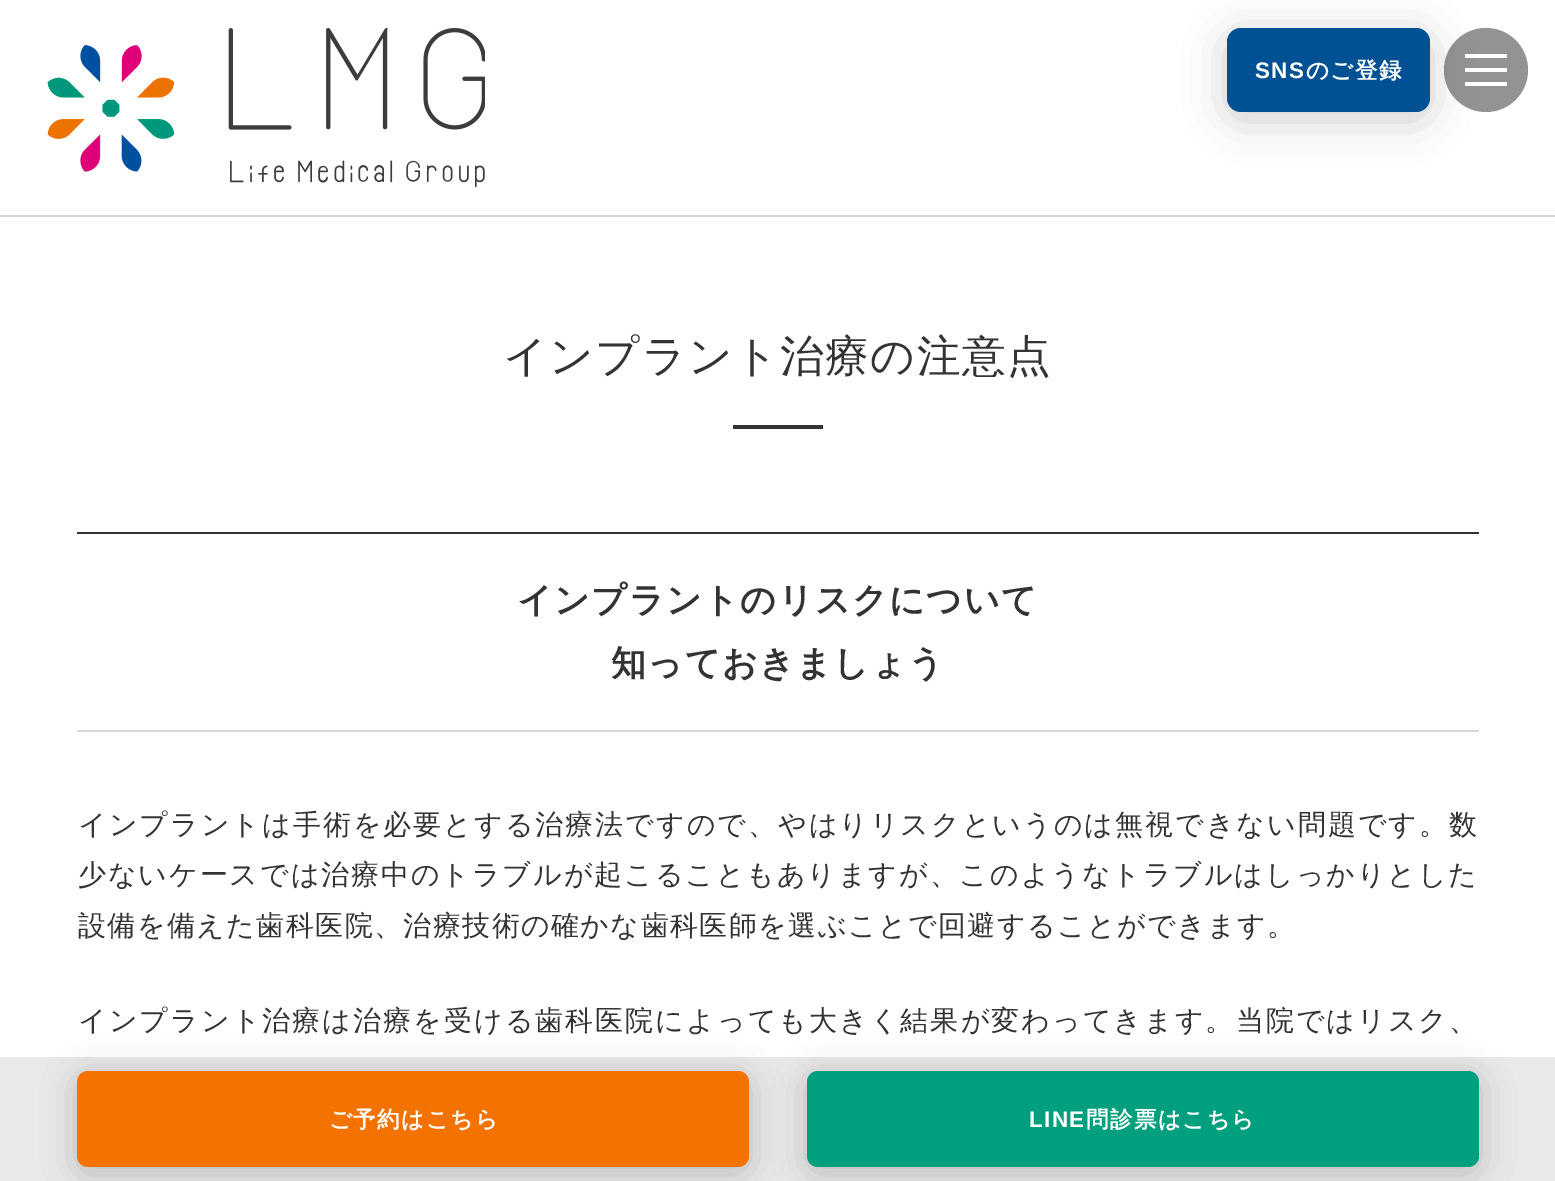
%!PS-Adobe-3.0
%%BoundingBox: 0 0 1555 1181
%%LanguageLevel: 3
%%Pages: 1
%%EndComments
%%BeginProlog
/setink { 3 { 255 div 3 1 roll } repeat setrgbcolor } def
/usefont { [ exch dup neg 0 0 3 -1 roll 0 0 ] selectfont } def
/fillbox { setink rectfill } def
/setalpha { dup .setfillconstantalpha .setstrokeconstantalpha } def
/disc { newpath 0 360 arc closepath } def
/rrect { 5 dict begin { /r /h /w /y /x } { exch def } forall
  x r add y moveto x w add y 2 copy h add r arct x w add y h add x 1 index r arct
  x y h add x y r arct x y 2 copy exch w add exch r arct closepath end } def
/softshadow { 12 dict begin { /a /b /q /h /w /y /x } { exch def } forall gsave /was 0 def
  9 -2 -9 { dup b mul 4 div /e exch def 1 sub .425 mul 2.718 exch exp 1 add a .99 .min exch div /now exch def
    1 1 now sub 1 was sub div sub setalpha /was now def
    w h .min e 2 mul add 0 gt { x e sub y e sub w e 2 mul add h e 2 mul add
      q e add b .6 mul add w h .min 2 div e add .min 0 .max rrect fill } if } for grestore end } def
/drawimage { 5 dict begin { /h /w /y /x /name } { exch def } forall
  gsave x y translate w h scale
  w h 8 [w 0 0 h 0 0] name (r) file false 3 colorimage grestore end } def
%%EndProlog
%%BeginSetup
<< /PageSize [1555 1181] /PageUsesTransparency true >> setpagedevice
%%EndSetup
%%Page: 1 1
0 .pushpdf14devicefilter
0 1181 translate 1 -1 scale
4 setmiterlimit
0 0 1555 1181 255 255 255 fillbox
0 215 1555 2 215 215 215 fillbox
(assets/img1.rgb) 47 28 438 159 drawimage
147 147 147 setink
1486 70 42 disc fill
1465 68 42 4 255 255 255 fillbox
1465 54 42 4 255 255 255 fillbox
1465 82 42 4 255 255 255 fillbox
0 0 0 setink
1227 35 203 84 14 21 0.2 softshadow
0 81 148 setink
1227 28 203 84 14 rrect fill
/LiberationSans-Bold 22.5 usefont
255 255 255 setink
1255 78 moveto 1.4 0 (SNS) ashow
/WenQuanYiZenHei-Bold 22.5 usefont
1306 78 moveto 1.4 0 (のご登録) ashow
/WenQuanYiZenHei-Medium 43.75 usefont
51 51 51 setink
503 371 moveto 1.4 0 (インプラント治療の注意点) ashow
733 425 90 4 51 51 51 fillbox
77 532 1402 2 51 51 51 fillbox
77 730 1402 2 215 215 215 fillbox
/WenQuanYiZenHei-Bold 35 usefont
51 51 51 setink
517 612 moveto 1.4 0 (インプラントのリスクについて) ashow
611 675 moveto 1.4 0 (知っておきましょう) ashow
/WenQuanYiZenHei-Medium 28 usefont
78 834 moveto 2 0 (インプラントは手術を必要とする治療法ですので、やはりリスクというのは無視できない問題です。数) ashow
78 884 moveto 1.9 0 (少ないケースでは治療中のトラブルが起こることもありますが、このようなトラブルはしっかりとした) ashow
78 935 moveto 1.4 0 (設備を備えた歯科医院、治療技術の確かな歯科医師を選ぶことで回避することができます。) ashow
78 1030 moveto 2.05 0 (インプラント治療は治療を受ける歯科医院によっても大きく結果が変わってきます。当院ではリスク、) ashow
0 1057 1555 124 233 233 233 fillbox
0 0 0 setink
77 1076 672 97 11 17 0.2 softshadow
244 115 0 setink
77 1071 672 96 11 rrect fill
/WenQuanYiZenHei-Bold 22.5 usefont
255 255 255 setink
329 1127 moveto 1.4 0 (ご予約はこちら) ashow
0 0 0 setink
807 1076 672 97 11 17 0.2 softshadow
0 159 125 setink
807 1071 672 96 11 rrect fill
/LiberationSans-Bold 22.5 usefont
255 255 255 setink
1029 1127 moveto 1.4 0 (LINE) ashow
/WenQuanYiZenHei-Bold 22.5 usefont
1086 1127 moveto 1.4 0 (問診票はこちら) ashow
.poppdf14devicefilter showpage
%%EOF
